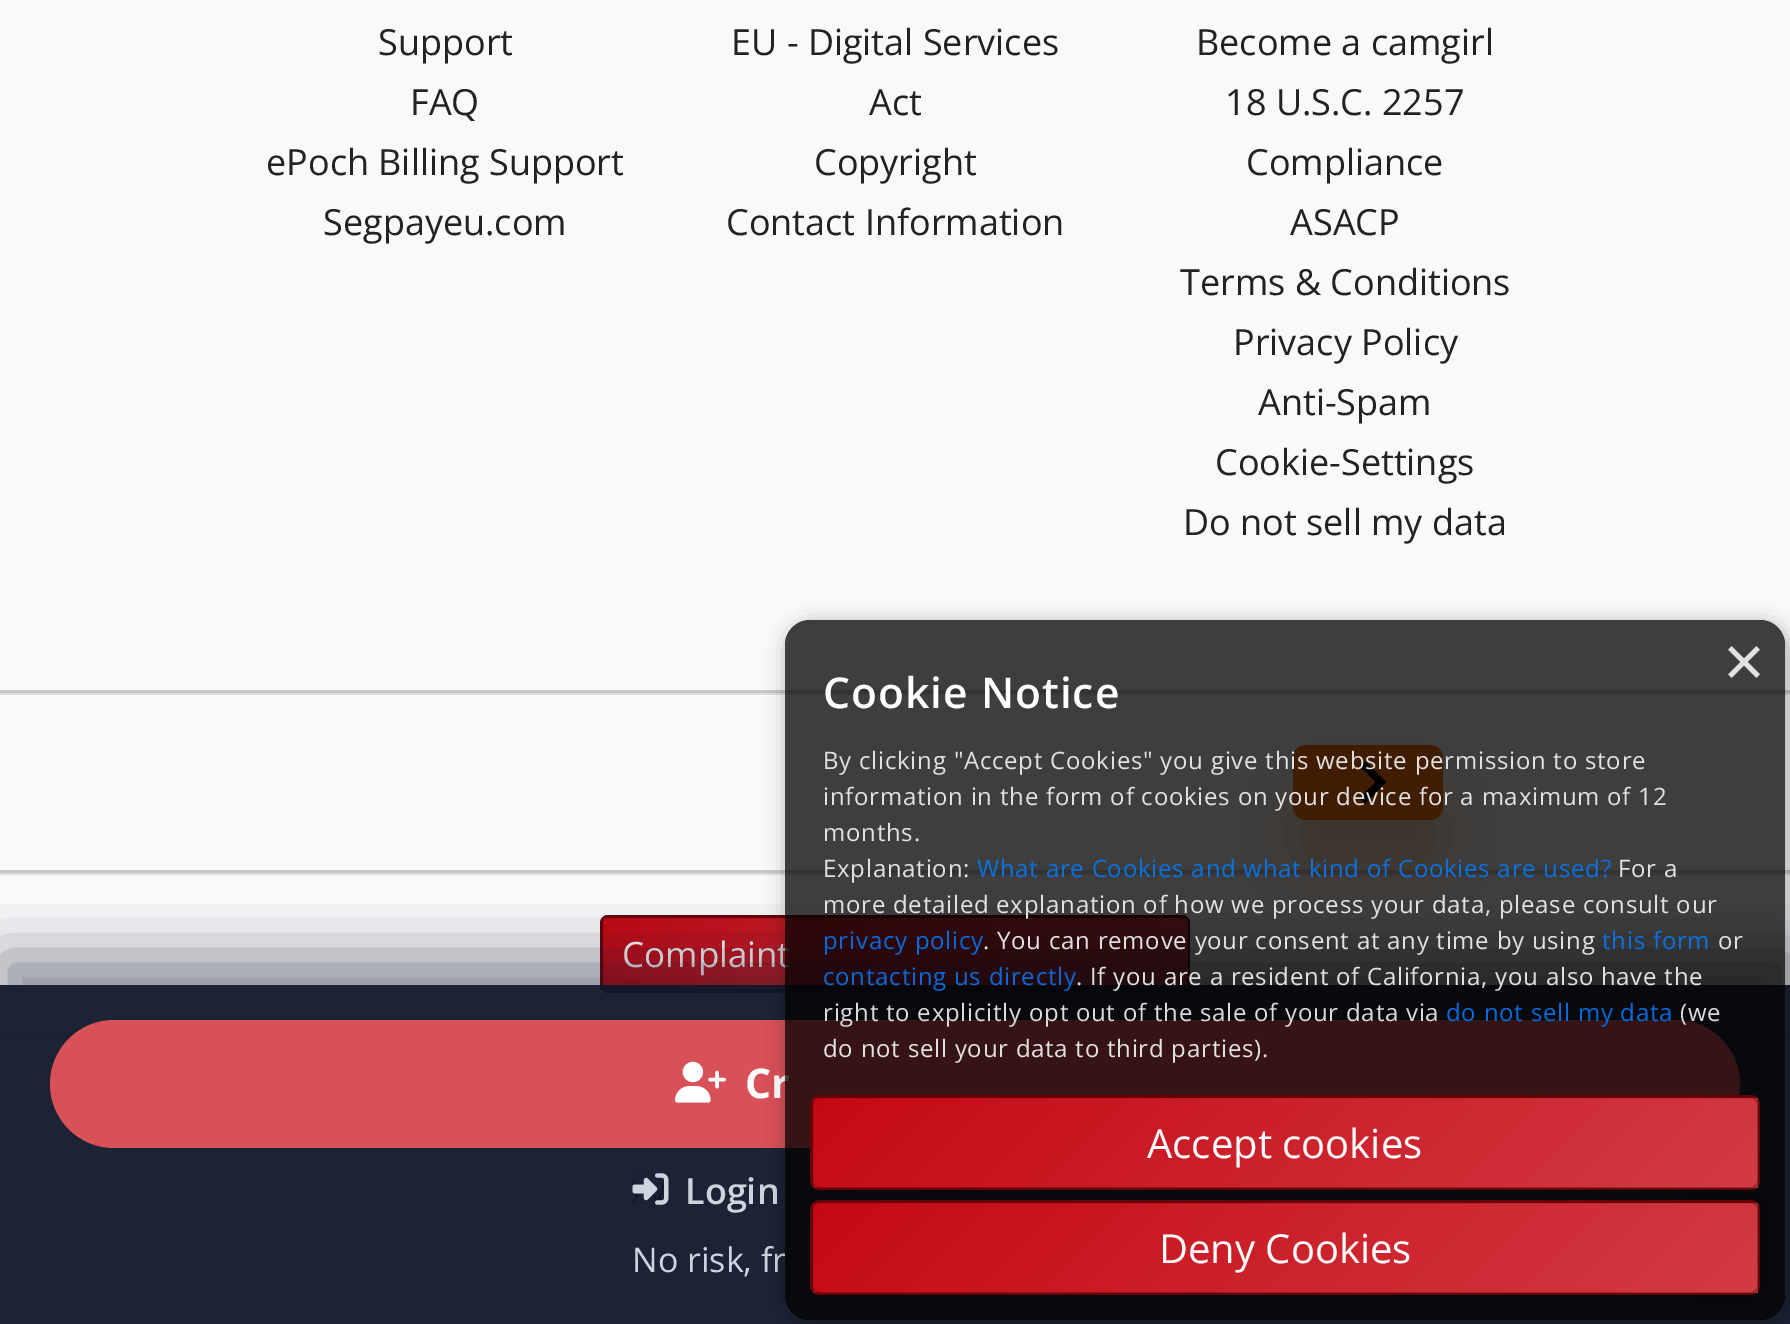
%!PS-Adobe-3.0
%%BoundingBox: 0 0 1790 1324
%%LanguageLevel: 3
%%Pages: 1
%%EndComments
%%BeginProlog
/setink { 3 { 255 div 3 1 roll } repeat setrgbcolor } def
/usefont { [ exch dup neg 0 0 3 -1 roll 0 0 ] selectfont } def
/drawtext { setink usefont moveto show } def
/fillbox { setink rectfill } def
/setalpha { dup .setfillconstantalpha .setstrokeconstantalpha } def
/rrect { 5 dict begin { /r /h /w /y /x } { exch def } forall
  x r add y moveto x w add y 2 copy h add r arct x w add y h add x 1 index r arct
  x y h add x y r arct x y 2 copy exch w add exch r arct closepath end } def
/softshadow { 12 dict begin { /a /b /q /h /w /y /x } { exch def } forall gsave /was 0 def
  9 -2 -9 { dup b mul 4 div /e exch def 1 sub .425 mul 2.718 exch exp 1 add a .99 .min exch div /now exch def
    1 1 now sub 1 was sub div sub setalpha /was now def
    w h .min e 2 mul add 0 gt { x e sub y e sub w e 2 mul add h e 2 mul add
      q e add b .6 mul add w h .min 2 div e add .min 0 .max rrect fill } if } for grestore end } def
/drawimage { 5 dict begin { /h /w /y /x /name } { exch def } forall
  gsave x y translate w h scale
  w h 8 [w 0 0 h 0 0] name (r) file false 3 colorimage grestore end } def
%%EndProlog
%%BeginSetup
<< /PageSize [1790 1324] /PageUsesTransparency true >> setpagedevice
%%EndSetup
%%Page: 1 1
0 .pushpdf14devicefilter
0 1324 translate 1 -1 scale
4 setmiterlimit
0 0 1790 1324 248 249 250 fillbox
(Support) 378 55 /OpenSans-Regular 36 34 34 34 drawtext
(FAQ) 410 115 /OpenSans-Regular 36 34 34 34 drawtext
(ePoch Billing Support) 266 175 /OpenSans-Regular 36 34 34 34 drawtext
(Segpayeu.com) 323 235 /OpenSans-Regular 36 34 34 34 drawtext
(EU - Digital Services) 731 55 /OpenSans-Regular 36 34 34 34 drawtext
(Act) 869 115 /OpenSans-Regular 36 34 34 34 drawtext
(Copyright) 814 175 /OpenSans-Regular 36 34 34 34 drawtext
(Contact Information) 726 235 /OpenSans-Regular 36 34 34 34 drawtext
(Become a camgirl) 1196 55 /OpenSans-Regular 36 34 34 34 drawtext
(18 U.S.C. 2257) 1225 115 /OpenSans-Regular 36 34 34 34 drawtext
(Compliance) 1246 175 /OpenSans-Regular 36 34 34 34 drawtext
(ASACP) 1290 235 /OpenSans-Regular 36 34 34 34 drawtext
(Terms & Conditions) 1180 295 /OpenSans-Regular 36 34 34 34 drawtext
(Privacy Policy) 1233 355 /OpenSans-Regular 36 34 34 34 drawtext
(Anti-Spam) 1258 415 /OpenSans-Regular 36 34 34 34 drawtext
(Cookie-Settings) 1215 475 /OpenSans-Regular 36 34 34 34 drawtext
(Do not sell my data) 1183 535 /OpenSans-Regular 36 34 34 34 drawtext
0 693 1790 2 221 221 221 fillbox
0 690 1790 3 199 199 199 fillbox
0 873 1790 2 221 221 221 fillbox
0 870 1790 3 199 199 199 fillbox
255 113 0 setink
1293 795 150 75 13 31 0.31 softshadow
1293 745 150 75 13 rrect fill
0 0 0 setink
1365 761 moveto 1386 782 lineto 1381 787.5 lineto 1359.5 766 lineto closepath fill
1381 777 moveto 1386 782 lineto 1365 803.5 lineto 1359.5 798 lineto closepath fill
138 6 14 setink
600 915 590 78 8 rrect fill
gsave 603 918 moveto 1188 918 lineto 1188 990 lineto 603 990 lineto closepath clip newpath
<< /ShadingType 2 /ColorSpace /DeviceRGB /Coords [731 789 1059 1118] /Extend [true true] /Function << /FunctionType 2 /Domain [0 1] /C0 [0.773 0.035 0.078] /C1 [0.827 0.231 0.267] /N 1 >> >> shfill grestore
0.25 setalpha
0 0 0 setink
3 setlinewidth
601.5 916.5 587 75 6.5 rrect stroke
1 setalpha
(Complaint) 622 967 /OpenSans-Regular 35 255 255 255 drawtext
0 1036 1790 2 221 221 221 fillbox
0 1033 1790 3 199 199 199 fillbox
0 0 0 setink
1685 1190 80 110 25 7.5 0.8 softshadow
216 80 88 setink
1685 1190 80 110 25 rrect fill
gsave
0 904 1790 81 rectclip
15 23 42 setink
0 955 1790 340 0 30 0.45 softshadow
grestore
0.95 setalpha
0 985 1790 339 15 23 42 fillbox
1 setalpha
216 80 88 setink
50 1020 1690 128 64 rrect fill
(assets/img1.rgb) 675 1061 51 42 drawimage
(Cr) 745 1098 /OpenSans-Bold 41 255 255 255 drawtext
(assets/img2.rgb) 632 1173 37 32 drawimage
(Login) 685 1204 /OpenSans-SemiBold 36 206 212 221 drawtext
(No risk, fr) 632 1272 /OpenSans-Regular 34 206 212 221 drawtext
gsave
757 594 moveto 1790 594 lineto 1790 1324 lineto 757 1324 lineto closepath 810 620 moveto 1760 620 lineto 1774 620 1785 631 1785 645 curveto 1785 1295 lineto 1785 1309 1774 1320 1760 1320 curveto 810 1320 lineto 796 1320 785 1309 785 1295 curveto 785 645 lineto 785 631 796 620 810 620 curveto closepath eoclip newpath
0 0 0 setink
788 625 1000 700 25 10 0.35 softshadow
grestore
0.75 setalpha
0 0 0 setink
785 620 1000 700 25 rrect fill
1 setalpha
(×) 1723 686 /LiberationSans-Regular 72 226 225 224 drawtext
/OpenSans-SemiBold 42.5 usefont
255 255 255 setink
823 708 moveto 1 0 (Cookie Notice) ashow
/OpenSans-Regular 24 usefont
226 225 224 setink
823 769 moveto 0.75 0 (By clicking "Accept Cookies" you give this website permission to store) ashow
823 805 moveto 0.75 0 (information in the form of cookies on your device for a maximum of 12) ashow
823 841 moveto 0.75 0 (months.) ashow
823 877 moveto 0.75 0 (Explanation:) ashow
9 113 225 setink
977 877 moveto 0.75 0 (What are Cookies and what kind of Cookies are used?) ashow
226 225 224 setink
1618 877 moveto 0.75 0 (For a) ashow
823 913 moveto 0.75 0 (more detailed explanation of how we process your data, please consult our) ashow
7 106 219 setink
823 949 moveto 0.75 0 (privacy policy) ashow
226 225 224 setink
983 949 moveto 0.75 0 (. You can remove your consent at any time by using) ashow
9 113 225 setink
1602 949 moveto 0.75 0 (this form) ashow
226 225 224 setink
1718 949 moveto 0.75 0 (or) ashow
7 106 219 setink
823 985 moveto 0.75 0 (contacting us directly) ashow
221 218 219 setink
1076 985 moveto 0.75 0 (.) ashow
226 225 224 setink
1090 985 moveto 0.75 0 (If you are a resident of California, you also have the) ashow
221 218 219 setink
823 1021 moveto 0.75 0 (right to explicitly opt out of the sale of your data via) ashow
7 106 219 setink
1446 1021 moveto 0.75 0 (do not sell my data) ashow
221 218 219 setink
1680 1021 moveto 0.75 0 (\(we) ashow
226 225 224 setink
823 1057 moveto 0.75 0 (do not sell your data to third parties\).) ashow
138 6 14 setink
810 1095 950 95 10 rrect fill
gsave
810 1095 950 95 10 rrect clip newpath
gsave 813 1098 moveto 1758 1098 lineto 1758 1188 lineto 813 1188 lineto closepath clip newpath
<< /ShadingType 2 /ColorSpace /DeviceRGB /Coords [1026 884 1544 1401] /Extend [true true] /Function << /FunctionType 2 /Domain [0 1] /C0 [0.773 0.035 0.078] /C1 [0.827 0.231 0.267] /N 1 >> >> shfill grestore
grestore
0.25 setalpha
0 0 0 setink
811.5 1096.5 947 92 8.5 rrect stroke
1 setalpha
(Accept cookies) 1147 1158 /OpenSans-Regular 40 255 255 255 drawtext
138 6 14 setink
810 1200 950 95 10 rrect fill
gsave
810 1200 950 95 10 rrect clip newpath
gsave 813 1203 moveto 1758 1203 lineto 1758 1293 lineto 813 1293 lineto closepath clip newpath
<< /ShadingType 2 /ColorSpace /DeviceRGB /Coords [1026 989 1544 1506] /Extend [true true] /Function << /FunctionType 2 /Domain [0 1] /C0 [0.773 0.035 0.078] /C1 [0.827 0.231 0.267] /N 1 >> >> shfill grestore
grestore
0.25 setalpha
0 0 0 setink
811.5 1201.5 947 92 8.5 rrect stroke
1 setalpha
(Deny Cookies) 1159 1263 /OpenSans-Regular 40 255 255 255 drawtext
.poppdf14devicefilter showpage
%%EOF
